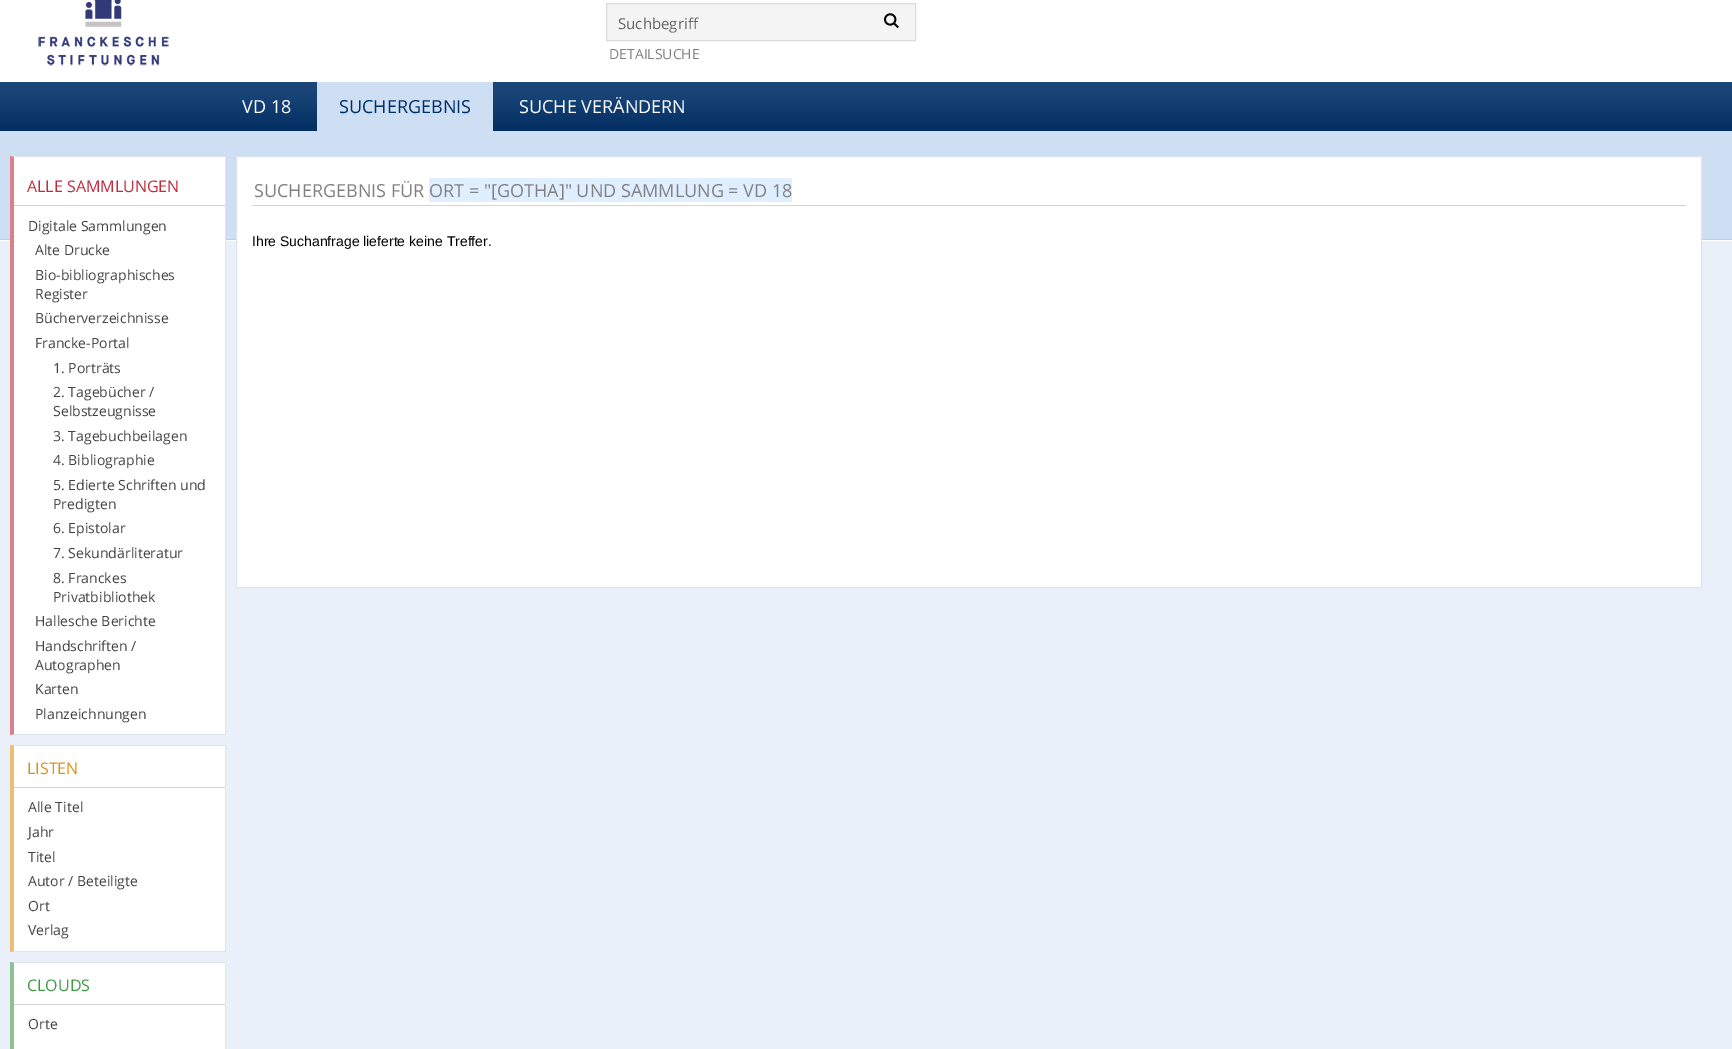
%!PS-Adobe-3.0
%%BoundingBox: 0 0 1732 1049
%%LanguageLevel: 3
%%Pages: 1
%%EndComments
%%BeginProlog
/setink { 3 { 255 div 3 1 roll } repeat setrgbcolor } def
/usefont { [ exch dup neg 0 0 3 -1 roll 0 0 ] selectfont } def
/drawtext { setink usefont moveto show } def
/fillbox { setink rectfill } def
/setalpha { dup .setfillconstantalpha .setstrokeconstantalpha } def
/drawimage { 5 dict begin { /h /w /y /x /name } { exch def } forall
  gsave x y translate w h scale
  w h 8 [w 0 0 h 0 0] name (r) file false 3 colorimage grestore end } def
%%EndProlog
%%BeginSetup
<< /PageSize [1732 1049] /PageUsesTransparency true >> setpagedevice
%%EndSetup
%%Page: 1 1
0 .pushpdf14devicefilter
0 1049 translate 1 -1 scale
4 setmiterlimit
0 0 1732 1049 255 255 255 fillbox
(assets/img1.rgb) 38 0 131 66 drawimage
244 244 244 setink
606.5 3.5 moveto 915.5 3.5 lineto 915.5 40.5 lineto 606.5 40.5 lineto closepath gsave fill grestore
219 219 219 setink
stroke
(Suchbegriff) 618 29 /OpenSans-Regular 15 100 100 100 drawtext
(assets/img2.rgb) 884 13 15 16 drawimage
(DETAILSUCHE) 609 59 /OpenSans-Regular 14 129 129 130 drawtext
(assets/img3.rgb) 0 82 1732 49 drawimage
(VD 18) 242 113 /OpenSans-Regular 18 255 255 255 drawtext
317 82 176 49 206 223 244 fillbox
(SUCHERGEBNIS) 339 113 /OpenSans-Regular 18 0 48 105 drawtext
(SUCHE VERÄNDERN) 519 113 /OpenSans-Regular 18 255 255 255 drawtext
0 241 1732 808 233 240 250 fillbox
(assets/img4.rgb) 0 131 1732 110 drawimage
10 156 215 579 255 255 255 fillbox
221 228 237 setink
10 156 moveto 226 156 lineto 225 157 lineto 14 157 lineto closepath fill
225 156 1 579 221 228 237 fillbox
226 735 moveto 10 735 lineto 14 734 lineto 225 734 lineto closepath fill
0.6 setalpha
193 43 61 setink
10 735 moveto 10 156 lineto 14 157 lineto 14 734 lineto closepath fill
1 setalpha
14 205 211 1 211 209 209 fillbox
(ALLE SAMMLUNGEN) 27 192 /OpenSans-Regular 16 193 43 61 drawtext
(Digitale Sammlungen) 28 231 /OpenSans-Regular 14 68 68 68 drawtext
(Alte Drucke) 35 255 /OpenSans-Regular 14 68 68 68 drawtext
(Bio-bibliographisches) 35 280 /OpenSans-Regular 14 68 68 68 drawtext
(Register) 35 299 /OpenSans-Regular 14 68 68 68 drawtext
(Bücherverzeichnisse) 35 323 /OpenSans-Regular 14 68 68 68 drawtext
(Francke-Portal) 35 348 /OpenSans-Regular 14 68 68 68 drawtext
(1. Porträts) 53 373 /OpenSans-Regular 14 68 68 68 drawtext
(2. Tagebücher /) 53 397 /OpenSans-Regular 14 68 68 68 drawtext
(Selbstzeugnisse) 53 416 /OpenSans-Regular 14 68 68 68 drawtext
(3. Tagebuchbeilagen) 53 441 /OpenSans-Regular 14 68 68 68 drawtext
(4. Bibliographie) 53 465 /OpenSans-Regular 14 68 68 68 drawtext
(5. Edierte Schriften und) 53 490 /OpenSans-Regular 14 68 68 68 drawtext
(Predigten) 53 509 /OpenSans-Regular 14 68 68 68 drawtext
(6. Epistolar) 53 533 /OpenSans-Regular 14 68 68 68 drawtext
(7. Sekundärliteratur) 53 558 /OpenSans-Regular 14 68 68 68 drawtext
(8. Franckes) 53 583 /OpenSans-Regular 14 68 68 68 drawtext
(Privatbibliothek) 53 602 /OpenSans-Regular 14 68 68 68 drawtext
(Hallesche Berichte) 35 626 /OpenSans-Regular 14 68 68 68 drawtext
(Handschriften /) 35 651 /OpenSans-Regular 14 68 68 68 drawtext
(Autographen) 35 670 /OpenSans-Regular 14 68 68 68 drawtext
(Karten) 35 694 /OpenSans-Regular 14 68 68 68 drawtext
(Planzeichnungen) 35 719 /OpenSans-Regular 14 68 68 68 drawtext
10 745 215 207 255 255 255 fillbox
221 228 237 setink
10 745 moveto 226 745 lineto 225 746 lineto 14 746 lineto closepath fill
225 745 1 207 221 228 237 fillbox
226 952 moveto 10 952 lineto 14 951 lineto 225 951 lineto closepath fill
0.6 setalpha
222 145 25 setink
10 952 moveto 10 745 lineto 14 746 lineto 14 951 lineto closepath fill
1 setalpha
14 787 211 1 211 209 209 fillbox
(LISTEN) 27 774 /OpenSans-Regular 16 222 145 25 drawtext
(Alle Titel) 28 812 /OpenSans-Regular 14 68 68 68 drawtext
(Jahr) 28 837 /OpenSans-Regular 14 68 68 68 drawtext
(Titel) 28 862 /OpenSans-Regular 14 68 68 68 drawtext
(Autor / Beteiligte) 28 886 /OpenSans-Regular 14 68 68 68 drawtext
(Ort) 28 911 /OpenSans-Regular 14 68 68 68 drawtext
(Verlag) 28 935 /OpenSans-Regular 14 68 68 68 drawtext
10 962 215 87 255 255 255 fillbox
221 228 237 setink
10 962 moveto 226 962 lineto 225 963 lineto 14 963 lineto closepath fill
225 962 1 87 221 228 237 fillbox
0.6 setalpha
64 154 72 setink
10 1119 moveto 10 962 lineto 14 963 lineto 14 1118 lineto closepath fill
1 setalpha
14 1004 211 1 211 209 209 fillbox
(CLOUDS) 27 991 /OpenSans-Regular 16 64 154 72 drawtext
(Orte) 28 1029 /OpenSans-Regular 14 68 68 68 drawtext
255 255 255 setink
236.5 156.5 moveto 1701.5 156.5 lineto 1701.5 587.5 lineto 236.5 587.5 lineto closepath gsave fill grestore
221 228 237 setink
stroke
252 205 1434 1 211 209 209 fillbox
(SUCHERGEBNIS FÜR) 254 197 /OpenSans-Regular 18 129 129 130 drawtext
429 178 363 24 223 239 255 fillbox
(ORT = "[GOTHA]" UND SAMMLUNG = VD 18) 429 197 /OpenSans-Regular 18 129 129 130 drawtext
(Ihre Suchanfrage lieferte keine Treffer.) 252 246 /LiberationSans-Regular 14 0 0 0 drawtext
.poppdf14devicefilter showpage
%%EOF
